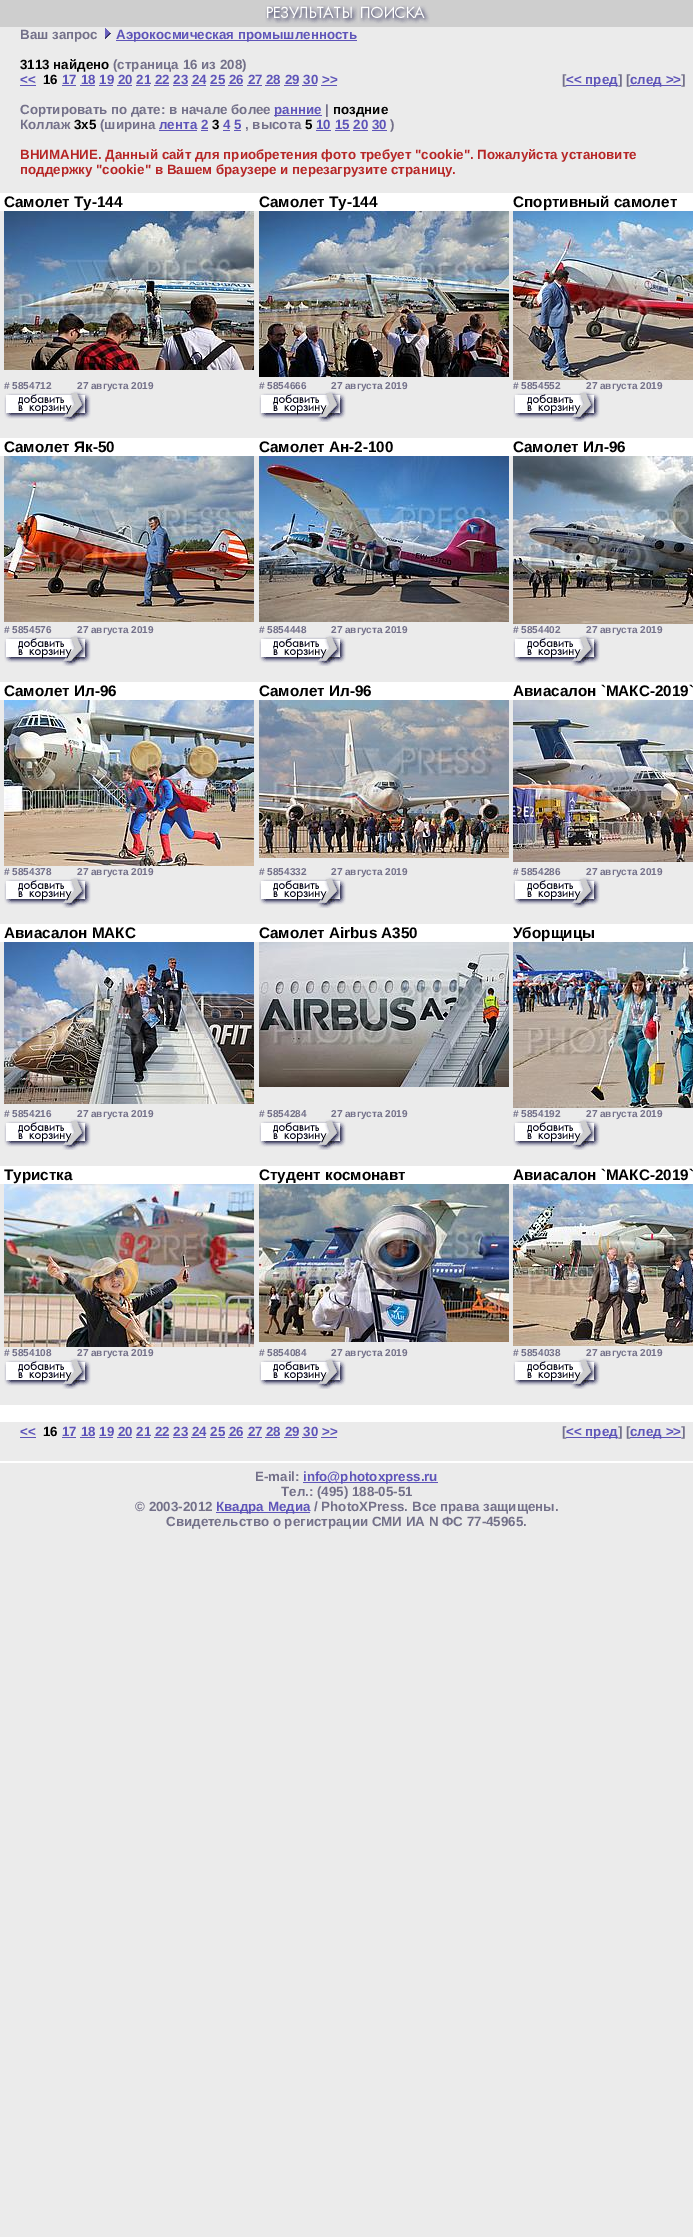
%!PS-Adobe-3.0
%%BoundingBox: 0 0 693 2237
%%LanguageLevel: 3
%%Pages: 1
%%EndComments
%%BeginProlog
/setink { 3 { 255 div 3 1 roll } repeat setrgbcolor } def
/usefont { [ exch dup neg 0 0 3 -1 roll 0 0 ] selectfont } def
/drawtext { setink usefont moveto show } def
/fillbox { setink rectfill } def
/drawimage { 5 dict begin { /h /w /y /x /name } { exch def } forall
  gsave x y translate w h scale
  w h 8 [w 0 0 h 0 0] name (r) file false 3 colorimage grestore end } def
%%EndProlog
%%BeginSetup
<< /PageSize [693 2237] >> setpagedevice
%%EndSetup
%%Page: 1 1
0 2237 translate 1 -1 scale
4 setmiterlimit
0 0 693 2237 235 235 235 fillbox
0 0 693 27 206 206 206 fillbox
(assets/img1.rgb) 265 5 165 19 drawimage
(Ваш запрос) 20 39 /LiberationSans-Bold 13.35 115 112 137 drawtext
(assets/img2.rgb) 105 28 6 11 drawimage
116 40 241 1 94 84 185 fillbox
(Аэрокосмическая промышленность) 116 39 /LiberationSans-Bold 13.35 94 84 185 drawtext
(3113 найдено) 20 69 /LiberationSans-Bold 13.35 0 0 0 drawtext
(\(страница 16 из 208\)) 113 69 /LiberationSans-Bold 13.35 115 112 137 drawtext
(<<) 20 84 /LiberationSans-Bold 13.35 94 84 185 drawtext
20 85 16 1 94 84 185 fillbox
(16) 43 84 /LiberationSans-Bold 13.35 0 0 0 drawtext
(17 18 19 20 21 22 23 24 25 26 27 28 29 30 >>) 62 84 /LiberationSans-Bold 13.35 94 84 185 drawtext
62 85 14 1 94 84 185 fillbox
80 85 15 1 94 84 185 fillbox
99 85 14 1 94 84 185 fillbox
117 85 15 1 94 84 185 fillbox
136 85 14 1 94 84 185 fillbox
154 85 15 1 94 84 185 fillbox
173 85 15 1 94 84 185 fillbox
191 85 15 1 94 84 185 fillbox
210 85 15 1 94 84 185 fillbox
228 85 15 1 94 84 185 fillbox
247 85 15 1 94 84 185 fillbox
265 85 15 1 94 84 185 fillbox
284 85 15 1 94 84 185 fillbox
302 85 15 1 94 84 185 fillbox
321 85 16 1 94 84 185 fillbox
([) 562 84 /LiberationSans-Bold 13.35 115 112 137 drawtext
566 85 52 1 94 84 185 fillbox
(<< пред) 566 84 /LiberationSans-Bold 13.35 94 84 185 drawtext
(] [) 618 84 /LiberationSans-Bold 13.35 115 112 137 drawtext
630 85 51 1 94 84 185 fillbox
(след >>) 630 84 /LiberationSans-Bold 13.35 94 84 185 drawtext
(]) 681 84 /LiberationSans-Bold 13.35 115 112 137 drawtext
(Сортировать по дате: в начале более) 20 114 /LiberationSans-Bold 13.35 115 112 137 drawtext
274 115 48 1 94 84 185 fillbox
(ранние) 274 114 /LiberationSans-Bold 13.35 94 84 185 drawtext
(|) 325 114 /LiberationSans-Bold 13.35 115 112 137 drawtext
(поздние) 333 114 /LiberationSans-Bold 13.35 0 0 0 drawtext
(Коллаж) 20 129 /LiberationSans-Bold 13.35 115 112 137 drawtext
(3x5) 74 129 /LiberationSans-Bold 13.35 0 0 0 drawtext
(\(ширина) 100 129 /LiberationSans-Bold 13.35 115 112 137 drawtext
(лента 2) 159 129 /LiberationSans-Bold 13.35 94 84 185 drawtext
159 130 38 1 94 84 185 fillbox
(3) 212 129 /LiberationSans-Bold 13.35 0 0 0 drawtext
(4 5) 223 129 /LiberationSans-Bold 13.35 94 84 185 drawtext
223 130 7 1 94 84 185 fillbox
(, высота) 245 129 /LiberationSans-Bold 13.35 115 112 137 drawtext
(5) 305 129 /LiberationSans-Bold 13.35 0 0 0 drawtext
(10 15 20 30) 316 129 /LiberationSans-Bold 13.35 94 84 185 drawtext
316 130 15 1 94 84 185 fillbox
(\)) 390 129 /LiberationSans-Bold 13.35 115 112 137 drawtext
201 130 7 1 94 84 185 fillbox
234 130 7 1 94 84 185 fillbox
335 130 15 1 94 84 185 fillbox
353 130 15 1 94 84 185 fillbox
372 130 15 1 94 84 185 fillbox
(ВНИМАНИЕ. Данный сайт для приобретения фото требует "cookie". Пожалуйста установите) 20 159 /LiberationSans-Bold 13.35 182 37 37 drawtext
(поддержку "cookie" в Вашем браузере и перезагрузите страницу.) 20 174 /LiberationSans-Bold 13.35 182 37 37 drawtext
0 193 693 18 255 255 255 fillbox
(Самолет Ту-144) 4 207 /LiberationSans-Bold 15.25 0 0 0 drawtext
(Самолет Ту-144) 259 207 /LiberationSans-Bold 15.25 0 0 0 drawtext
(Спортивный самолет) 513 207 /LiberationSans-Bold 15.25 0 0 0 drawtext
(assets/img3.rgb) 4 211 250 159 drawimage
(assets/img4.rgb) 259 211 250 166 drawimage
(assets/img5.rgb) 513 211 180 169 drawimage
(# 5854712) 4 389 /LiberationSans-Bold 10 115 112 137 drawtext
(27 августа 2019) 77 389 /LiberationSans-Bold 10 115 112 137 drawtext
(assets/img6.rgb) 4 391 87 31 drawimage
(# 5854666) 259 389 /LiberationSans-Bold 10 115 112 137 drawtext
(27 августа 2019) 331 389 /LiberationSans-Bold 10 115 112 137 drawtext
(assets/img6.rgb) 259 391 87 31 drawimage
(# 5854552) 513 389 /LiberationSans-Bold 10 115 112 137 drawtext
(27 августа 2019) 586 389 /LiberationSans-Bold 10 115 112 137 drawtext
(assets/img6.rgb) 513 391 87 31 drawimage
0 438 693 18 255 255 255 fillbox
(Самолет Як-50) 4 452 /LiberationSans-Bold 15.25 0 0 0 drawtext
(Самолет Ан-2-100) 259 452 /LiberationSans-Bold 15.25 0 0 0 drawtext
(Самолет Ил-96) 513 452 /LiberationSans-Bold 15.25 0 0 0 drawtext
(assets/img7.rgb) 4 456 250 166 drawimage
(assets/img8.rgb) 259 456 250 166 drawimage
(assets/img9.rgb) 513 456 180 168 drawimage
(# 5854576) 4 633 /LiberationSans-Bold 10 115 112 137 drawtext
(27 августа 2019) 77 633 /LiberationSans-Bold 10 115 112 137 drawtext
(assets/img6.rgb) 4 635 87 31 drawimage
(# 5854448) 259 633 /LiberationSans-Bold 10 115 112 137 drawtext
(27 августа 2019) 331 633 /LiberationSans-Bold 10 115 112 137 drawtext
(assets/img6.rgb) 259 635 87 31 drawimage
(# 5854402) 513 633 /LiberationSans-Bold 10 115 112 137 drawtext
(27 августа 2019) 586 633 /LiberationSans-Bold 10 115 112 137 drawtext
(assets/img6.rgb) 513 635 87 31 drawimage
0 682 693 18 255 255 255 fillbox
(Самолет Ил-96) 4 696 /LiberationSans-Bold 15.25 0 0 0 drawtext
(Самолет Ил-96) 259 696 /LiberationSans-Bold 15.25 0 0 0 drawtext
(Авиасалон `МАКС-2019`) 513 696 /LiberationSans-Bold 15.25 0 0 0 drawtext
(assets/img10.rgb) 4 700 250 166 drawimage
(assets/img11.rgb) 259 700 250 158 drawimage
(assets/img12.rgb) 513 700 180 162 drawimage
(# 5854378) 4 875 /LiberationSans-Bold 10 115 112 137 drawtext
(27 августа 2019) 77 875 /LiberationSans-Bold 10 115 112 137 drawtext
(assets/img6.rgb) 4 877 87 31 drawimage
(# 5854332) 259 875 /LiberationSans-Bold 10 115 112 137 drawtext
(27 августа 2019) 331 875 /LiberationSans-Bold 10 115 112 137 drawtext
(assets/img6.rgb) 259 877 87 31 drawimage
(# 5854286) 513 875 /LiberationSans-Bold 10 115 112 137 drawtext
(27 августа 2019) 586 875 /LiberationSans-Bold 10 115 112 137 drawtext
(assets/img6.rgb) 513 877 87 31 drawimage
0 924 693 18 255 255 255 fillbox
(Авиасалон МАКС) 4 938 /LiberationSans-Bold 15.25 0 0 0 drawtext
(Самолет Airbus А350) 259 938 /LiberationSans-Bold 15.25 0 0 0 drawtext
(Уборщицы) 513 938 /LiberationSans-Bold 15.25 0 0 0 drawtext
(assets/img13.rgb) 4 942 250 162 drawimage
(assets/img14.rgb) 259 942 250 145 drawimage
(assets/img15.rgb) 513 942 180 166 drawimage
(# 5854216) 4 1117 /LiberationSans-Bold 10 115 112 137 drawtext
(27 августа 2019) 77 1117 /LiberationSans-Bold 10 115 112 137 drawtext
(assets/img6.rgb) 4 1119 87 31 drawimage
(# 5854284) 259 1117 /LiberationSans-Bold 10 115 112 137 drawtext
(27 августа 2019) 331 1117 /LiberationSans-Bold 10 115 112 137 drawtext
(assets/img6.rgb) 259 1119 87 31 drawimage
(# 5854192) 513 1117 /LiberationSans-Bold 10 115 112 137 drawtext
(27 августа 2019) 586 1117 /LiberationSans-Bold 10 115 112 137 drawtext
(assets/img6.rgb) 513 1119 87 31 drawimage
0 1166 693 18 255 255 255 fillbox
(Туристка) 4 1180 /LiberationSans-Bold 15.25 0 0 0 drawtext
(Студент космонавт) 259 1180 /LiberationSans-Bold 15.25 0 0 0 drawtext
(Авиасалон `МАКС-2019`) 513 1180 /LiberationSans-Bold 15.25 0 0 0 drawtext
(assets/img16.rgb) 4 1184 250 163 drawimage
(assets/img17.rgb) 259 1184 250 158 drawimage
(assets/img18.rgb) 513 1184 180 162 drawimage
(# 5854108) 4 1356 /LiberationSans-Bold 10 115 112 137 drawtext
(27 августа 2019) 77 1356 /LiberationSans-Bold 10 115 112 137 drawtext
(assets/img6.rgb) 4 1358 87 31 drawimage
(# 5854084) 259 1356 /LiberationSans-Bold 10 115 112 137 drawtext
(27 августа 2019) 331 1356 /LiberationSans-Bold 10 115 112 137 drawtext
(assets/img6.rgb) 259 1358 87 31 drawimage
(# 5854038) 513 1356 /LiberationSans-Bold 10 115 112 137 drawtext
(27 августа 2019) 586 1356 /LiberationSans-Bold 10 115 112 137 drawtext
(assets/img6.rgb) 513 1358 87 31 drawimage
0 1405 693 17 255 255 255 fillbox
(<<) 20 1436 /LiberationSans-Bold 13.35 94 84 185 drawtext
20 1437 16 1 94 84 185 fillbox
(16) 43 1436 /LiberationSans-Bold 13.35 0 0 0 drawtext
(17 18 19 20 21 22 23 24 25 26 27 28 29 30 >>) 62 1436 /LiberationSans-Bold 13.35 94 84 185 drawtext
62 1437 14 1 94 84 185 fillbox
80 1437 15 1 94 84 185 fillbox
99 1437 14 1 94 84 185 fillbox
117 1437 15 1 94 84 185 fillbox
136 1437 14 1 94 84 185 fillbox
154 1437 15 1 94 84 185 fillbox
173 1437 15 1 94 84 185 fillbox
191 1437 15 1 94 84 185 fillbox
210 1437 15 1 94 84 185 fillbox
228 1437 15 1 94 84 185 fillbox
247 1437 15 1 94 84 185 fillbox
265 1437 15 1 94 84 185 fillbox
284 1437 15 1 94 84 185 fillbox
302 1437 15 1 94 84 185 fillbox
321 1437 16 1 94 84 185 fillbox
([) 562 1436 /LiberationSans-Bold 13.35 115 112 137 drawtext
566 1437 52 1 94 84 185 fillbox
(<< пред) 566 1436 /LiberationSans-Bold 13.35 94 84 185 drawtext
(] [) 618 1436 /LiberationSans-Bold 13.35 115 112 137 drawtext
630 1437 51 1 94 84 185 fillbox
(след >>) 630 1436 /LiberationSans-Bold 13.35 94 84 185 drawtext
(]) 681 1436 /LiberationSans-Bold 13.35 115 112 137 drawtext
0 1461 693 2 255 255 255 fillbox
(E-mail:) 255 1481 /LiberationSans-Bold 13.35 115 112 137 drawtext
303 1482 135 1 94 84 185 fillbox
(info@photoxpress.ru) 303 1481 /LiberationSans-Bold 13.35 94 84 185 drawtext
(Тел.: \(495\) 188-05-51) 281 1496 /LiberationSans-Bold 13.35 115 112 137 drawtext
(© 2003-2012) 135 1511 /LiberationSans-Bold 13.35 115 112 137 drawtext
216 1512 94 1 94 84 185 fillbox
(Квадра Медиа) 216 1511 /LiberationSans-Bold 13.35 94 84 185 drawtext
(/ PhotoXPress. Все права защищены.) 314 1511 /LiberationSans-Bold 13.35 115 112 137 drawtext
(Свидетельство о регистрации СМИ ИА N ФС 77-45965.) 166 1526 /LiberationSans-Bold 13.35 115 112 137 drawtext
showpage
%%EOF
